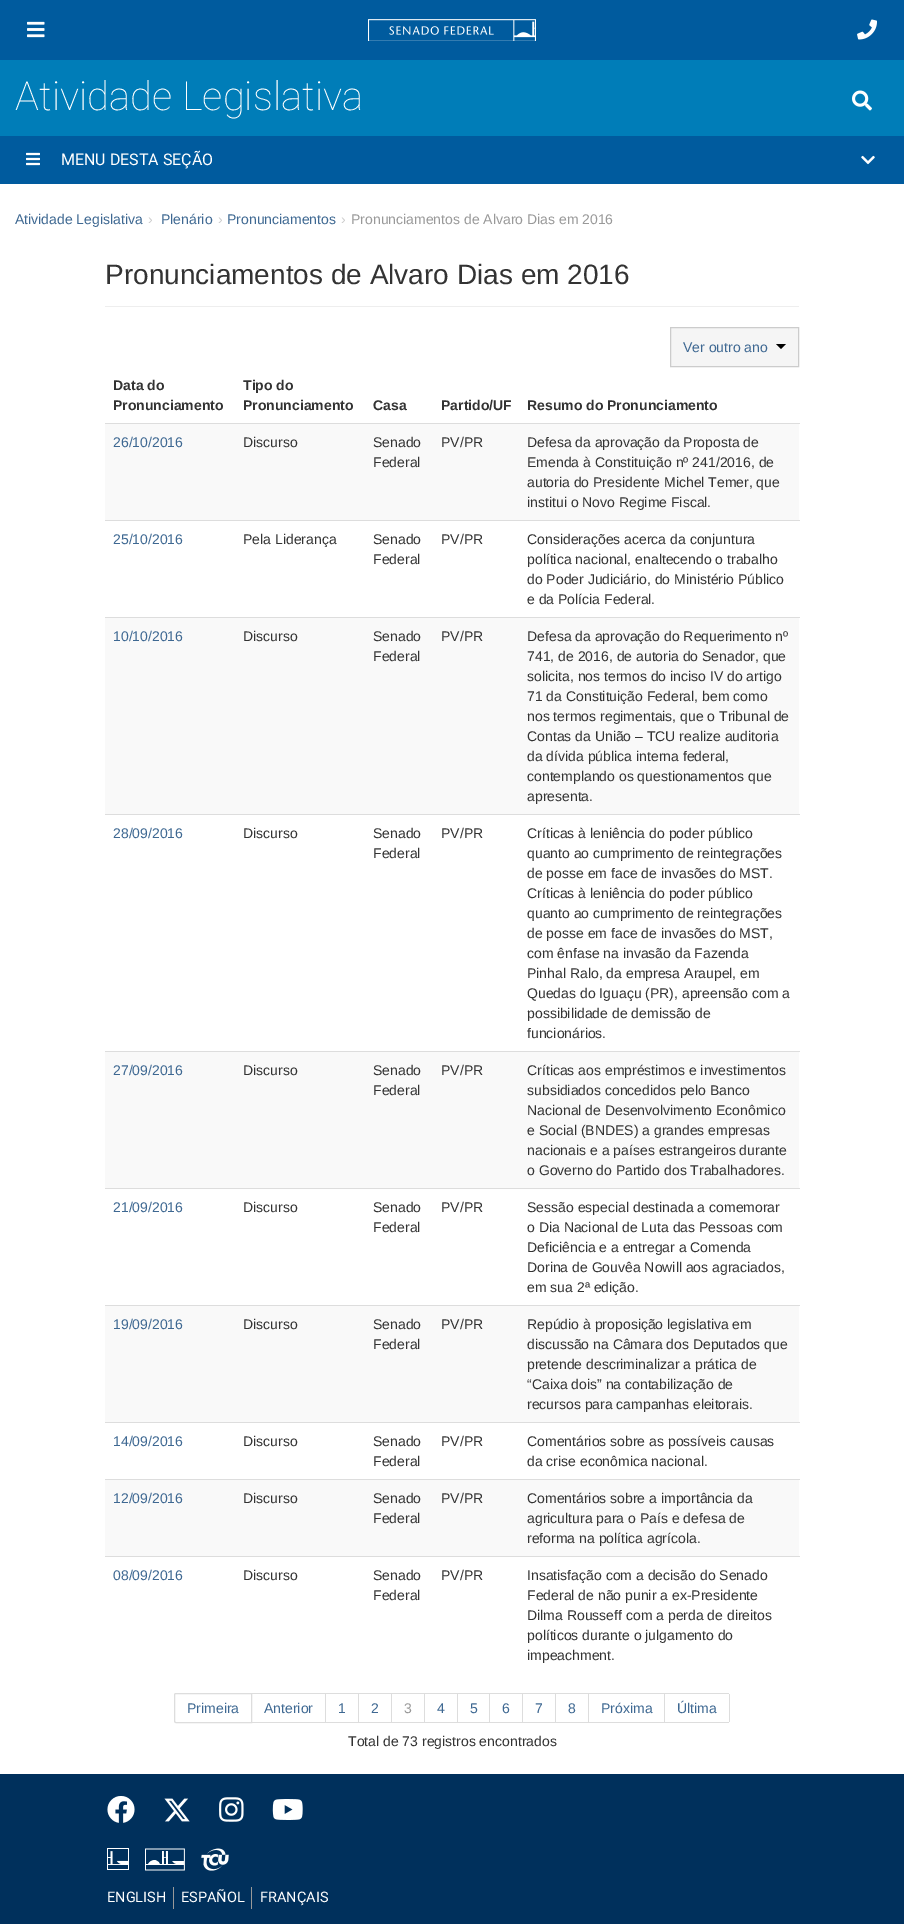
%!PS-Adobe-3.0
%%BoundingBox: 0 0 904 1924
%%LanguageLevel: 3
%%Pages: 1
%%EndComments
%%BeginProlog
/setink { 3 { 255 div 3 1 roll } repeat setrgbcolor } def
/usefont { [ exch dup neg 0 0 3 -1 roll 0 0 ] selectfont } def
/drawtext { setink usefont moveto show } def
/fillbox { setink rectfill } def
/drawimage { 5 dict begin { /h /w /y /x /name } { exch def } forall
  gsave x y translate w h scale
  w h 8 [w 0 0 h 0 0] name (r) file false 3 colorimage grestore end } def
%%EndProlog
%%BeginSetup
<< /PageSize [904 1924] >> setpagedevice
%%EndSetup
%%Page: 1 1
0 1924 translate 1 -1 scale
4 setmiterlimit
0 0 904 1924 255 255 255 fillbox
0 0 904 60 0 91 158 fillbox
(assets/img1.rgb) 27 21 18 17 drawimage
(assets/img2.rgb) 368 19 168 22 drawimage
(assets/img3.rgb) 857 19 20 21 drawimage
0 60 904 76 0 125 184 fillbox
(Atividade Legislativa) 15 110 /Roboto-Thin 40 255 255 255 drawtext
(assets/img4.rgb) 852 90 20 21 drawimage
0 136 904 48 0 91 158 fillbox
(assets/img5.rgb) 26 152 14 14 drawimage
(MENU DESTA SEÇÃO) 61 165 /Roboto-Regular 16 255 255 255 drawtext
(assets/img6.rgb) 861 155 14 10 drawimage
(Atividade Legislativa) 15 224 /LiberationSans-Regular 14 62 104 146 drawtext
(›) 148 224 /LiberationSans-Regular 14 204 204 204 drawtext
(Plenário) 161 224 /LiberationSans-Regular 14 62 104 146 drawtext
(›) 218 224 /LiberationSans-Regular 14 204 204 204 drawtext
(Pronunciamentos) 227 224 /LiberationSans-Regular 14 62 104 146 drawtext
(›) 341 224 /LiberationSans-Regular 14 204 204 204 drawtext
(Pronunciamentos de Alvaro Dias em 2016) 351 224 /LiberationSans-Regular 14 153 153 153 drawtext
105 306 694 1 238 238 238 fillbox
(Pronunciamentos de Alvaro Dias em 2016) 105 284 /LiberationSans-Regular 28 51 51 51 drawtext
245 245 245 setink
670.5 327.5 moveto 798.5 327.5 lineto 798.5 366.5 lineto 670.5 366.5 lineto closepath gsave fill grestore
204 204 204 setink
stroke
(Ver outro ano) 683 352 /LiberationSans-Regular 14 62 104 146 drawtext
0 0 0 setink
776 344 moveto 786 344 lineto 781 349 lineto closepath fill
(Data do) 113 390 /LiberationSans-Bold 14 51 51 51 drawtext
(Pronunciamento) 113 410 /LiberationSans-Bold 14 51 51 51 drawtext
(Tipo do) 243 390 /LiberationSans-Bold 14 51 51 51 drawtext
(Pronunciamento) 243 410 /LiberationSans-Bold 14 51 51 51 drawtext
(Casa) 373 410 /LiberationSans-Bold 14 51 51 51 drawtext
(Partido/UF) 441 410 /LiberationSans-Bold 14 51 51 51 drawtext
(Resumo do Pronunciamento) 527 410 /LiberationSans-Bold 14 51 51 51 drawtext
105 424 694 96 249 249 249 fillbox
(26/10/2016) 113 447 /LiberationSans-Regular 14 62 104 146 drawtext
(Discurso) 243 447 /LiberationSans-Regular 14 51 51 51 drawtext
(Senado) 373 447 /LiberationSans-Regular 14 51 51 51 drawtext
(Federal) 373 467 /LiberationSans-Regular 14 51 51 51 drawtext
(PV/PR) 441 447 /LiberationSans-Regular 14 51 51 51 drawtext
105 423 695 1 221 221 221 fillbox
(Defesa da aprovação da Proposta de) 527 447 /LiberationSans-Regular 14 51 51 51 drawtext
(Emenda à Constituição nº 241/2016, de) 527 467 /LiberationSans-Regular 14 51 51 51 drawtext
(autoria do Presidente Michel Temer, que) 527 487 /LiberationSans-Regular 14 51 51 51 drawtext
(institui o Novo Regime Fiscal.) 527 507 /LiberationSans-Regular 14 51 51 51 drawtext
(25/10/2016) 113 544 /LiberationSans-Regular 14 62 104 146 drawtext
(Pela Liderança) 243 544 /LiberationSans-Regular 14 51 51 51 drawtext
(Senado) 373 544 /LiberationSans-Regular 14 51 51 51 drawtext
(Federal) 373 564 /LiberationSans-Regular 14 51 51 51 drawtext
(PV/PR) 441 544 /LiberationSans-Regular 14 51 51 51 drawtext
105 520 695 1 221 221 221 fillbox
(Considerações acerca da conjuntura) 527 544 /LiberationSans-Regular 14 51 51 51 drawtext
(política nacional, enaltecendo o trabalho) 527 564 /LiberationSans-Regular 14 51 51 51 drawtext
(do Poder Judiciário, do Ministério Público) 527 584 /LiberationSans-Regular 14 51 51 51 drawtext
(e da Polícia Federal.) 527 604 /LiberationSans-Regular 14 51 51 51 drawtext
105 618 694 196 249 249 249 fillbox
(10/10/2016) 113 641 /LiberationSans-Regular 14 62 104 146 drawtext
(Discurso) 243 641 /LiberationSans-Regular 14 51 51 51 drawtext
(Senado) 373 641 /LiberationSans-Regular 14 51 51 51 drawtext
(Federal) 373 661 /LiberationSans-Regular 14 51 51 51 drawtext
(PV/PR) 441 641 /LiberationSans-Regular 14 51 51 51 drawtext
105 617 695 1 221 221 221 fillbox
(Defesa da aprovação do Requerimento nº) 527 641 /LiberationSans-Regular 14 51 51 51 drawtext
(741, de 2016, de autoria do Senador, que) 527 661 /LiberationSans-Regular 14 51 51 51 drawtext
(solicita, nos termos do inciso IV do artigo) 527 681 /LiberationSans-Regular 14 51 51 51 drawtext
(71 da Constituição Federal, bem como) 527 701 /LiberationSans-Regular 14 51 51 51 drawtext
(nos termos regimentais, que o Tribunal de) 527 721 /LiberationSans-Regular 14 51 51 51 drawtext
(Contas da União – TCU realize auditoria) 527 741 /LiberationSans-Regular 14 51 51 51 drawtext
(da dívida pública interna federal,) 527 761 /LiberationSans-Regular 14 51 51 51 drawtext
(contemplando os questionamentos que) 527 781 /LiberationSans-Regular 14 51 51 51 drawtext
(apresenta.) 527 801 /LiberationSans-Regular 14 51 51 51 drawtext
(28/09/2016) 113 838 /LiberationSans-Regular 14 62 104 146 drawtext
(Discurso) 243 838 /LiberationSans-Regular 14 51 51 51 drawtext
(Senado) 373 838 /LiberationSans-Regular 14 51 51 51 drawtext
(Federal) 373 858 /LiberationSans-Regular 14 51 51 51 drawtext
(PV/PR) 441 838 /LiberationSans-Regular 14 51 51 51 drawtext
105 814 695 1 221 221 221 fillbox
(Críticas à leniência do poder público) 527 838 /LiberationSans-Regular 14 51 51 51 drawtext
(quanto ao cumprimento de reintegrações) 527 858 /LiberationSans-Regular 14 51 51 51 drawtext
(de posse em face de invasões do MST.) 527 878 /LiberationSans-Regular 14 51 51 51 drawtext
(Críticas à leniência do poder público) 527 898 /LiberationSans-Regular 14 51 51 51 drawtext
(quanto ao cumprimento de reintegrações) 527 918 /LiberationSans-Regular 14 51 51 51 drawtext
(de posse em face de invasões do MST,) 527 938 /LiberationSans-Regular 14 51 51 51 drawtext
(com ênfase na invasão da Fazenda) 527 958 /LiberationSans-Regular 14 51 51 51 drawtext
(Pinhal Ralo, da empresa Araupel, em) 527 978 /LiberationSans-Regular 14 51 51 51 drawtext
(Quedas do Iguaçu \(PR\), apreensão com a) 527 998 /LiberationSans-Regular 14 51 51 51 drawtext
(possibilidade de demissão de) 527 1018 /LiberationSans-Regular 14 51 51 51 drawtext
(funcionários.) 527 1038 /LiberationSans-Regular 14 51 51 51 drawtext
105 1052 694 136 249 249 249 fillbox
(27/09/2016) 113 1075 /LiberationSans-Regular 14 62 104 146 drawtext
(Discurso) 243 1075 /LiberationSans-Regular 14 51 51 51 drawtext
(Senado) 373 1075 /LiberationSans-Regular 14 51 51 51 drawtext
(Federal) 373 1095 /LiberationSans-Regular 14 51 51 51 drawtext
(PV/PR) 441 1075 /LiberationSans-Regular 14 51 51 51 drawtext
105 1051 695 1 221 221 221 fillbox
(Críticas aos empréstimos e investimentos) 527 1075 /LiberationSans-Regular 14 51 51 51 drawtext
(subsidiados concedidos pelo Banco) 527 1095 /LiberationSans-Regular 14 51 51 51 drawtext
(Nacional de Desenvolvimento Econômico) 527 1115 /LiberationSans-Regular 14 51 51 51 drawtext
(e Social \(BNDES\) a grandes empresas) 527 1135 /LiberationSans-Regular 14 51 51 51 drawtext
(nacionais e a países estrangeiros durante) 527 1155 /LiberationSans-Regular 14 51 51 51 drawtext
(o Governo do Partido dos Trabalhadores.) 527 1175 /LiberationSans-Regular 14 51 51 51 drawtext
(21/09/2016) 113 1212 /LiberationSans-Regular 14 62 104 146 drawtext
(Discurso) 243 1212 /LiberationSans-Regular 14 51 51 51 drawtext
(Senado) 373 1212 /LiberationSans-Regular 14 51 51 51 drawtext
(Federal) 373 1232 /LiberationSans-Regular 14 51 51 51 drawtext
(PV/PR) 441 1212 /LiberationSans-Regular 14 51 51 51 drawtext
105 1188 695 1 221 221 221 fillbox
(Sessão especial destinada a comemorar) 527 1212 /LiberationSans-Regular 14 51 51 51 drawtext
(o Dia Nacional de Luta das Pessoas com) 527 1232 /LiberationSans-Regular 14 51 51 51 drawtext
(Deficiência e a entregar a Comenda) 527 1252 /LiberationSans-Regular 14 51 51 51 drawtext
(Dorina de Gouvêa Nowill aos agraciados,) 527 1272 /LiberationSans-Regular 14 51 51 51 drawtext
(em sua 2ª edição.) 527 1292 /LiberationSans-Regular 14 51 51 51 drawtext
105 1306 694 116 249 249 249 fillbox
(19/09/2016) 113 1329 /LiberationSans-Regular 14 62 104 146 drawtext
(Discurso) 243 1329 /LiberationSans-Regular 14 51 51 51 drawtext
(Senado) 373 1329 /LiberationSans-Regular 14 51 51 51 drawtext
(Federal) 373 1349 /LiberationSans-Regular 14 51 51 51 drawtext
(PV/PR) 441 1329 /LiberationSans-Regular 14 51 51 51 drawtext
105 1305 695 1 221 221 221 fillbox
(Repúdio à proposição legislativa em) 527 1329 /LiberationSans-Regular 14 51 51 51 drawtext
(discussão na Câmara dos Deputados que) 527 1349 /LiberationSans-Regular 14 51 51 51 drawtext
(pretende descriminalizar a prática de) 527 1369 /LiberationSans-Regular 14 51 51 51 drawtext
(“Caixa dois” na contabilização de) 527 1389 /LiberationSans-Regular 14 51 51 51 drawtext
(recursos para campanhas eleitorais.) 527 1409 /LiberationSans-Regular 14 51 51 51 drawtext
(14/09/2016) 113 1446 /LiberationSans-Regular 14 62 104 146 drawtext
(Discurso) 243 1446 /LiberationSans-Regular 14 51 51 51 drawtext
(Senado) 373 1446 /LiberationSans-Regular 14 51 51 51 drawtext
(Federal) 373 1466 /LiberationSans-Regular 14 51 51 51 drawtext
(PV/PR) 441 1446 /LiberationSans-Regular 14 51 51 51 drawtext
105 1422 695 1 221 221 221 fillbox
(Comentários sobre as possíveis causas) 527 1446 /LiberationSans-Regular 14 51 51 51 drawtext
(da crise econômica nacional.) 527 1466 /LiberationSans-Regular 14 51 51 51 drawtext
105 1480 694 76 249 249 249 fillbox
(12/09/2016) 113 1503 /LiberationSans-Regular 14 62 104 146 drawtext
(Discurso) 243 1503 /LiberationSans-Regular 14 51 51 51 drawtext
(Senado) 373 1503 /LiberationSans-Regular 14 51 51 51 drawtext
(Federal) 373 1523 /LiberationSans-Regular 14 51 51 51 drawtext
(PV/PR) 441 1503 /LiberationSans-Regular 14 51 51 51 drawtext
105 1479 695 1 221 221 221 fillbox
(Comentários sobre a importância da) 527 1503 /LiberationSans-Regular 14 51 51 51 drawtext
(agricultura para o País e defesa de) 527 1523 /LiberationSans-Regular 14 51 51 51 drawtext
(reforma na política agrícola.) 527 1543 /LiberationSans-Regular 14 51 51 51 drawtext
(08/09/2016) 113 1580 /LiberationSans-Regular 14 62 104 146 drawtext
(Discurso) 243 1580 /LiberationSans-Regular 14 51 51 51 drawtext
(Senado) 373 1580 /LiberationSans-Regular 14 51 51 51 drawtext
(Federal) 373 1600 /LiberationSans-Regular 14 51 51 51 drawtext
(PV/PR) 441 1580 /LiberationSans-Regular 14 51 51 51 drawtext
105 1556 695 1 221 221 221 fillbox
(Insatisfação com a decisão do Senado) 527 1580 /LiberationSans-Regular 14 51 51 51 drawtext
(Federal de não punir a ex-Presidente) 527 1600 /LiberationSans-Regular 14 51 51 51 drawtext
(Dilma Rousseff com a perda de direitos) 527 1620 /LiberationSans-Regular 14 51 51 51 drawtext
(políticos durante o julgamento do) 527 1640 /LiberationSans-Regular 14 51 51 51 drawtext
(impeachment.) 527 1660 /LiberationSans-Regular 14 51 51 51 drawtext
221 221 221 setink
176 1693.5 moveto 251.5 1693.5 lineto 251.5 1722.5 lineto 176 1722.5 lineto 175 1722.5 174.5 1722 174.5 1721 curveto 174.5 1695 lineto 174.5 1694 175 1693.5 176 1693.5 curveto closepath stroke
(Primeira) 187 1713 /LiberationSans-Regular 14 62 104 146 drawtext
252 1693 477 1 221 221 221 fillbox
325 1693 1 30 221 221 221 fillbox
252 1722 74 1 221 221 221 fillbox
(Anterior) 264 1713 /LiberationSans-Regular 14 62 104 146 drawtext
358 1693 1 30 221 221 221 fillbox
326 1722 33 1 221 221 221 fillbox
(1) 338 1713 /LiberationSans-Regular 14 62 104 146 drawtext
391 1693 1 30 221 221 221 fillbox
359 1722 33 1 221 221 221 fillbox
(2) 371 1713 /LiberationSans-Regular 14 62 104 146 drawtext
424 1693 1 30 221 221 221 fillbox
392 1722 33 1 221 221 221 fillbox
(3) 404 1713 /LiberationSans-Regular 14 153 153 153 drawtext
457 1693 1 30 221 221 221 fillbox
425 1722 33 1 221 221 221 fillbox
(4) 437 1713 /LiberationSans-Regular 14 62 104 146 drawtext
489 1693 1 30 221 221 221 fillbox
458 1722 32 1 221 221 221 fillbox
(5) 470 1713 /LiberationSans-Regular 14 62 104 146 drawtext
522 1693 1 30 221 221 221 fillbox
490 1722 33 1 221 221 221 fillbox
(6) 502 1713 /LiberationSans-Regular 14 62 104 146 drawtext
555 1693 1 30 221 221 221 fillbox
523 1722 33 1 221 221 221 fillbox
(7) 535 1713 /LiberationSans-Regular 14 62 104 146 drawtext
588 1693 1 30 221 221 221 fillbox
556 1722 33 1 221 221 221 fillbox
(8) 568 1713 /LiberationSans-Regular 14 62 104 146 drawtext
664 1693 1 30 221 221 221 fillbox
589 1722 140 1 221 221 221 fillbox
(Próxima) 601 1713 /LiberationSans-Regular 14 62 104 146 drawtext
729 1694 1 28 221 221 221 fillbox
(Última) 677 1713 /LiberationSans-Regular 14 62 104 146 drawtext
(Total de 73 registros encontrados) 348 1746 /LiberationSans-Regular 14 51 51 51 drawtext
0 1774 904 150 0 48 92 fillbox
(assets/img7.rgb) 107 1796 28 27 drawimage
(assets/img8.rgb) 164 1798 26 24 drawimage
(assets/img9.rgb) 219 1797 25 25 drawimage
(assets/img10.rgb) 272 1799 31 21 drawimage
(assets/img11.rgb) 107 1848 22 22 drawimage
(assets/img12.rgb) 145 1848 40 23 drawimage
(assets/img13.rgb) 201 1848 28 23 drawimage
(ENGLISH) 107 1902 /Roboto-Regular 14.5 255 255 255 drawtext
173 1887 1 22 153 153 153 fillbox
(ESPAÑOL) 181 1902 /Roboto-Regular 14.5 255 255 255 drawtext
251 1887 1 22 153 153 153 fillbox
(FRANÇAIS) 260 1902 /Roboto-Regular 14.5 255 255 255 drawtext
showpage
%%EOF
